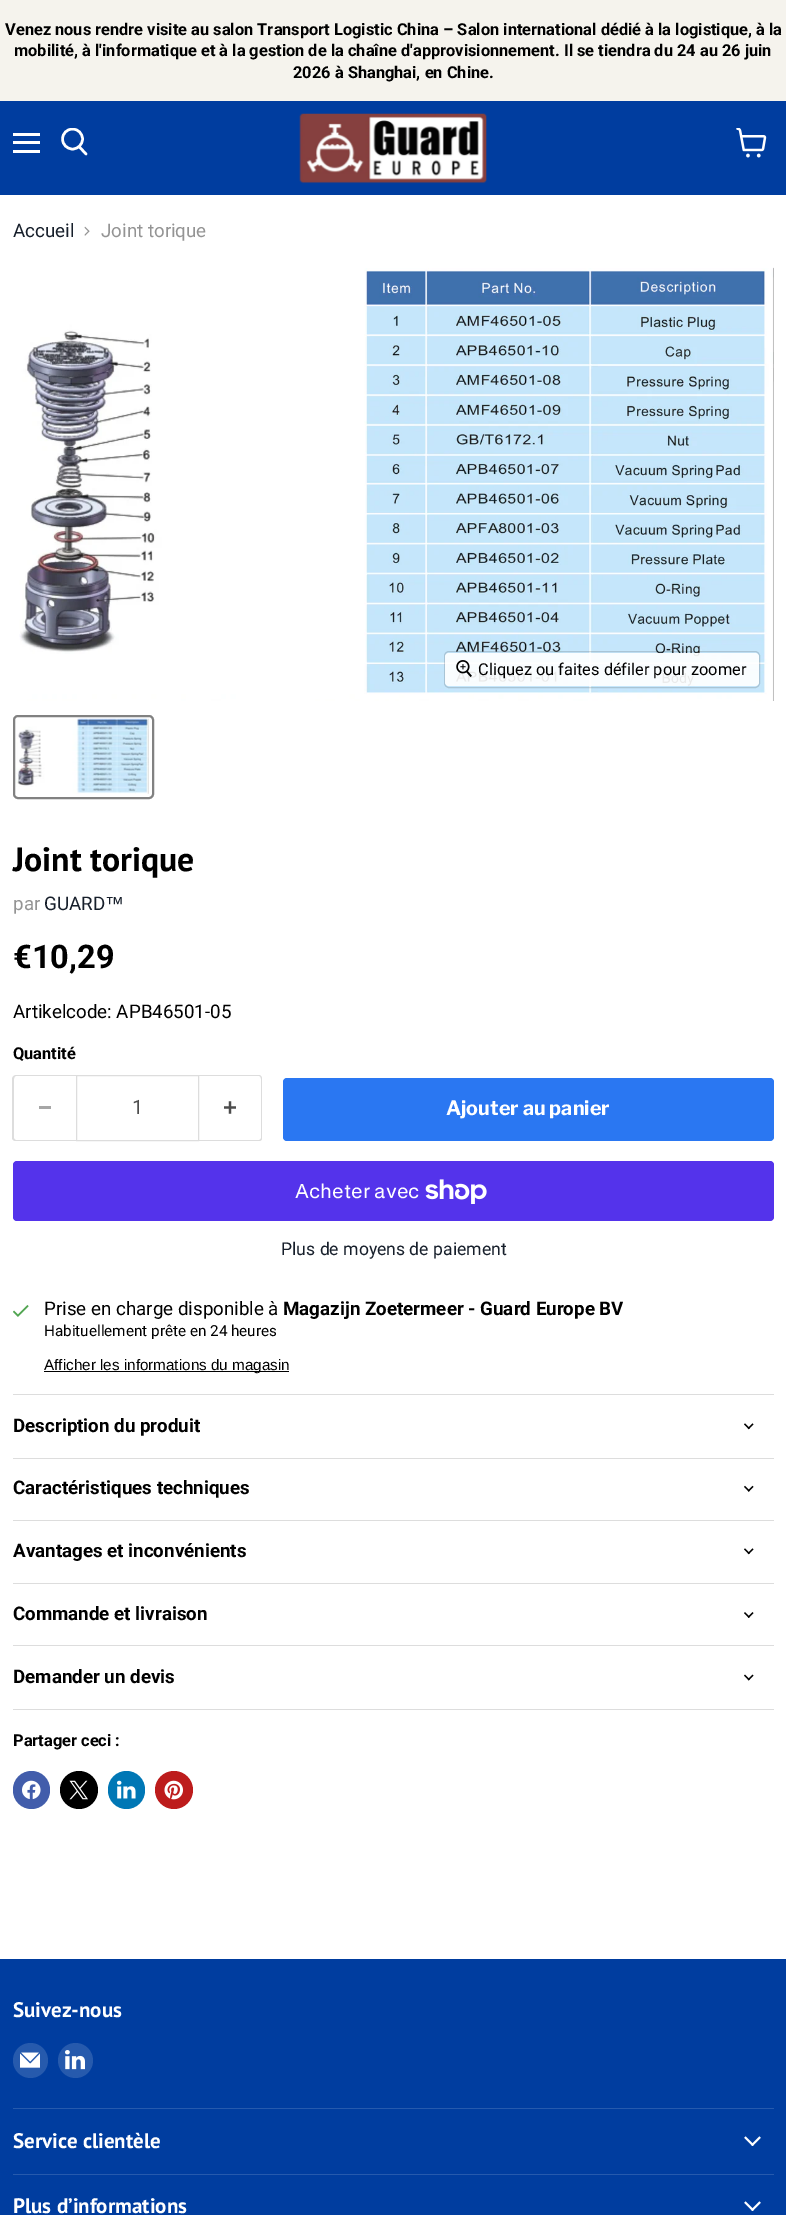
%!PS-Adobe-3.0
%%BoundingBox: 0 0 786 2215
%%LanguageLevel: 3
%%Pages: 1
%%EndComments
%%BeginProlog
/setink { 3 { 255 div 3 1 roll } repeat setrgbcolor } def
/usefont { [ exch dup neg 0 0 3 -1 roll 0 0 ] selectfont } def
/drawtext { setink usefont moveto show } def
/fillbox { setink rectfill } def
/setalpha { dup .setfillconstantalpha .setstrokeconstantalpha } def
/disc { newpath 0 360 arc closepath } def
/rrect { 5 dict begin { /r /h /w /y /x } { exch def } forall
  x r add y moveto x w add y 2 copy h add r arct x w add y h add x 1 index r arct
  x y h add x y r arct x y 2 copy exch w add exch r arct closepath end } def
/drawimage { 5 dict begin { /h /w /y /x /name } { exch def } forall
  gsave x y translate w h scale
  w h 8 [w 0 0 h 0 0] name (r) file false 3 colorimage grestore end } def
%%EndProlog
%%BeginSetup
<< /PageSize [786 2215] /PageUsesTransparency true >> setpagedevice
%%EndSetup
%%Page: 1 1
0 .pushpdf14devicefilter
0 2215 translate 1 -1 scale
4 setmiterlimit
0 0 786 2215 255 255 255 fillbox
0 0 786 101 245 243 237 fillbox
(Venez nous rendre visite au salon Transport Logistic China – Salon international dédié à la logistique, à la) 5 35 /Roboto-Bold 16.4 0 0 0 drawtext
(mobilité, à l'informatique et à la gestion de la chaîne d'approvisionnement. Il se tiendra du 24 au 26 juin) 14 56 /Roboto-Bold 16.4 0 0 0 drawtext
(2026 à Shanghai, en Chine.) 293 78 /Roboto-Bold 16.4 0 0 0 drawtext
0 101 786 94 0 61 159 fillbox
13 133 27 3 255 255 255 fillbox
13 141 27 3 255 255 255 fillbox
13 150 27 3 255 255 255 fillbox
2.5 setlinewidth
1 setlinecap
86 154 moveto 79.5 147 lineto stroke
gsave
60 128 29 30 rectclip
0 setlinecap
72.5 139 10 disc stroke
grestore
(assets/img1.rgb) 299 113 188 71 drawimage
(assets/img2.rgb) 736 128 31 30 drawimage
(Accueil) 13 237 /Roboto-Regular 18.75 23 31 43 drawtext
(assets/img3.rgb) 84 226 6 10 drawimage
(Joint torique) 101 237 /Roboto-Regular 18.75 148 148 148 drawtext
(assets/img4.rgb) 19 267 755 434 drawimage
0.15 setalpha
0 0 0 setink
1 setlinewidth
0 setlinecap
444.5 651.5 315 36 4.5 rrect stroke
0.9 setalpha
255 255 255 setink
445 653 314 33 4 rrect fill
1 setalpha
(assets/img5.rgb) 456 660 16 17 drawimage
(Cliquez ou faites défiler pour zoomer) 478 675 /Roboto-Regular 16.4 0 0 0 drawtext
129 129 129 setink
2 setlinewidth
14 716 139 82 4 rrect stroke
(assets/img6.rgb) 16 718 133 76 drawimage
(Joint torique) 13 871 /PTSans-Bold 33.75 0 0 0 drawtext
(par) 13 910 /Roboto-Regular 18.75 148 148 148 drawtext
(GUARD) 44 910 /Roboto-Regular 18.75 23 31 43 drawtext
(™) 105 910 /LiberationSans-Regular 18.75 23 31 43 drawtext
(€10,29) 13 968 /Roboto-Bold 32.5 0 0 0 drawtext
(Artikelcode: APB46501-05) 13 1018 /Roboto-Regular 18.75 0 0 0 drawtext
(Quantité) 13 1059 /Roboto-Bold 16.4 0 0 0 drawtext
221 221 221 setink
16 1075 moveto 76 1075 lineto 76 1141 lineto 16 1141 lineto 14 1141 12 1140 12 1138 curveto 12 1079 lineto 12 1077 14 1075 16 1075 curveto closepath 16 1076 moveto 76 1076 lineto 76 1140 lineto 16 1140 lineto 15 1140 14 1139 14 1138 curveto 14 1079 lineto 14 1077 15 1076 16 1076 curveto closepath eofill
39 1106 12 3 166 166 166 fillbox
221 221 221 setink
1 setlinewidth
76.5 1075.5 122 65 rectstroke
(1) 132 1114 /Roboto-Regular 19.75 77 77 77 drawtext
221 221 221 setink
199 1075 moveto 259 1075 lineto 261 1075 262 1077 262 1079 curveto 262 1138 lineto 262 1140 261 1141 259 1141 curveto 199 1141 lineto closepath 199 1076 moveto 259 1076 lineto 260 1076 261 1077 261 1079 curveto 261 1138 lineto 261 1139 260 1140 259 1140 curveto 199 1140 lineto closepath eofill
(assets/img7.rgb) 224 1101 12 13 drawimage
42 119 242 setink
283 1078 491 63 4 rrect fill
(Ajouter au panier) 446 1115 /LibreFranklin-Bold 19.75 255 255 255 drawtext
84 51 235 setink
13 1161 761 60 4 rrect fill
(Acheter avec) 295 1198 /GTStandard-Regular 20 255 255 255 drawtext
(assets/img8.rgb) 425 1179 62 25 drawimage
(Plus de moyens de paiement) 281 1255 /Roboto-Regular 17.6 23 31 43 drawtext
(assets/img9.rgb) 13 1305 16 12 drawimage
(Prise en charge disponible à) 44 1315 /Roboto-Regular 18.75 0 0 0 drawtext
(Magazijn Zoetermeer - Guard Europe BV) 283 1315 /Roboto-Bold 18.75 0 0 0 drawtext
(Habituellement prête en 24 heures) 44 1336 /Roboto-Regular 15.25 0 0 0 drawtext
44 1371 245 1 0 0 0 fillbox
(Afficher les informations du magasin) 44 1370 /LiberationSans-Regular 15.25 0 0 0 drawtext
13 1394 761 1 221 221 221 fillbox
13 1458 761 1 221 221 221 fillbox
(Description du produit) 13 1432 /Roboto-Bold 18.75 0 0 0 drawtext
(assets/img10.rgb) 744 1423 10 7 drawimage
13 1520 761 1 221 221 221 fillbox
(Caractéristiques techniques) 13 1494 /Roboto-Bold 18.75 0 0 0 drawtext
(assets/img11.rgb) 744 1485 10 7 drawimage
13 1583 761 1 221 221 221 fillbox
(Avantages et inconvénients) 13 1557 /Roboto-Bold 18.75 0 0 0 drawtext
(assets/img10.rgb) 744 1548 10 7 drawimage
13 1645 761 1 221 221 221 fillbox
(Commande et livraison) 13 1620 /Roboto-Bold 18.75 0 0 0 drawtext
(assets/img12.rgb) 744 1612 10 6 drawimage
13 1709 761 1 221 221 221 fillbox
(Demander un devis) 13 1683 /Roboto-Bold 18.75 0 0 0 drawtext
(assets/img13.rgb) 744 1674 10 7 drawimage
(Partager ceci :) 13 1746 /Roboto-Bold 16.4 0 0 0 drawtext
66 93 171 setink
13 1771 37 38 18.5 rrect fill
(assets/img14.rgb) 22 1780 19 20 drawimage
0 0 0 setink
79 1790 19 disc fill
(assets/img15.rgb) 69 1780 19 20 drawimage
0 119 181 setink
108 1771 37 38 18.5 rrect fill
(assets/img16.rgb) 117 1780 19 19 drawimage
189 28 28 setink
174 1790 19 disc fill
(assets/img17.rgb) 164 1780 19 20 drawimage
0 1959 786 256 0 61 159 fillbox
13 2108 761 1 38 90 173 fillbox
(Suivez-nous) 13 2017 /PTSans-Bold 21 255 255 255 drawtext
38 90 173 setink
30.5 2060.5 17.5 disc fill
(assets/img18.rgb) 20 2052 20 16 drawimage
75.5 2060.5 17.5 disc fill
(assets/img19.rgb) 65 2050 20 20 drawimage
13 2174 761 1 38 90 173 fillbox
(Service clientèle) 13 2148 /PTSans-Bold 21 255 255 255 drawtext
(assets/img20.rgb) 744 2136 17 10 drawimage
(Plus d’informations) 13 2213 /PTSans-Bold 21 255 255 255 drawtext
(assets/img20.rgb) 744 2201 17 10 drawimage
.poppdf14devicefilter showpage
%%EOF
